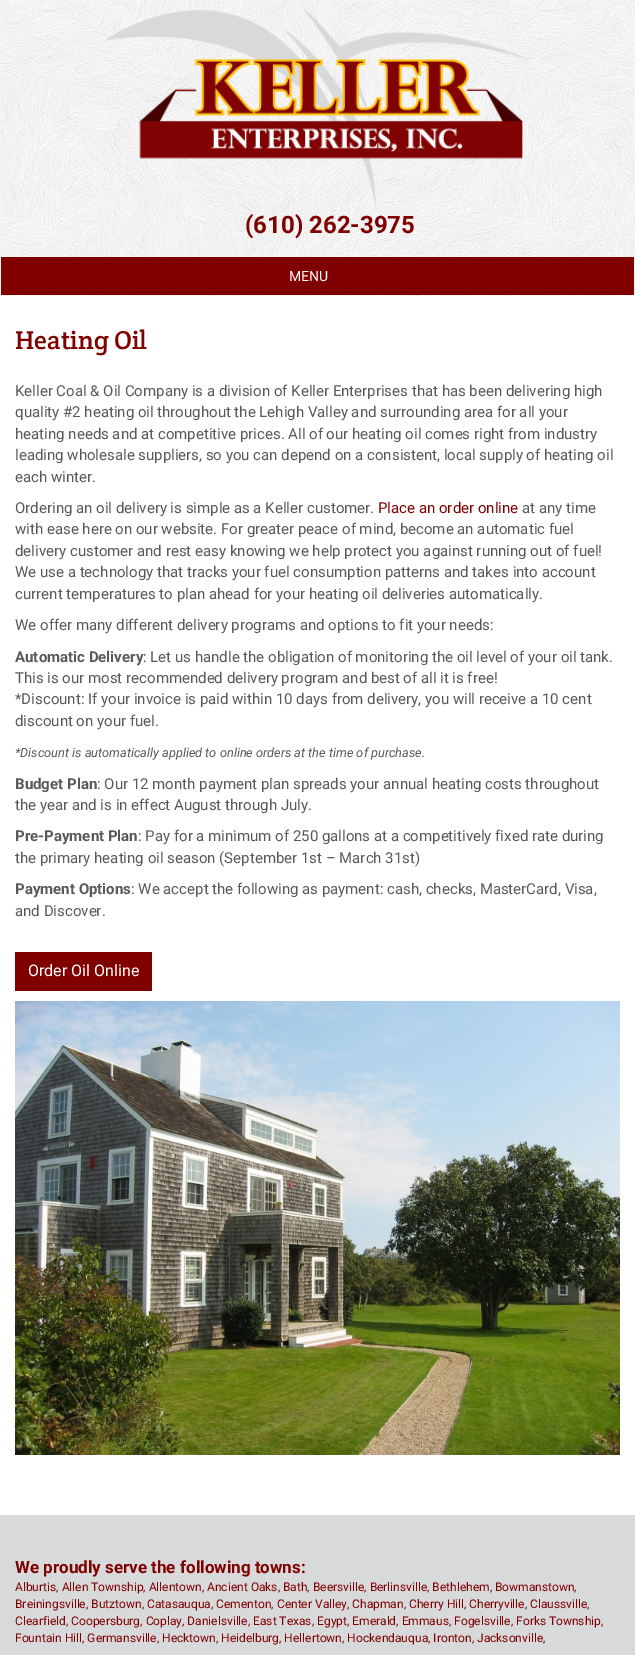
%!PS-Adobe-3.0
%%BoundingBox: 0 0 635 1655
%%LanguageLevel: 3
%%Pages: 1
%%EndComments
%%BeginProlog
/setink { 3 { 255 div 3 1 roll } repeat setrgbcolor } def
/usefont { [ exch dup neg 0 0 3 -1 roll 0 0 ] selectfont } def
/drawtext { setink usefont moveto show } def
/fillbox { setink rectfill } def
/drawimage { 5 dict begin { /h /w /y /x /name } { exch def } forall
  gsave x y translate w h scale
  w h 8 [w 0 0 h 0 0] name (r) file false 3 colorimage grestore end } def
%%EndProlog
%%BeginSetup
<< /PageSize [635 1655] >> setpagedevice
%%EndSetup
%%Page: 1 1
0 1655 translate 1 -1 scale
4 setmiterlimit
0 0 635 1655 255 255 255 fillbox
(assets/img1.rgb) 0 0 635 296 drawimage
(assets/img2.rgb) 105 8 425 199 drawimage
(\(610\) 262-3975) 245 233 /Roboto-Bold 24 128 0 0 drawtext
1 257 633 38 128 0 0 fillbox
(MENU) 289 281 /Roboto-Regular 14 255 255 255 drawtext
(Heating Oil) 15 349 /CreteRound-Regular 26 128 0 0 drawtext
(Keller Coal & Oil Company is a division of Keller Enterprises that has been delivering high) 15 396 /Roboto-Regular 15 88 89 91 drawtext
(quality #2 heating oil throughout the Lehigh Valley and surrounding area for all your) 15 417 /Roboto-Regular 15 88 89 91 drawtext
(heating needs and at competitive prices. All of our heating oil comes right from industry) 15 439 /Roboto-Regular 15 88 89 91 drawtext
(leading wholesale suppliers, so you can depend on a consistent, local supply of heating oil) 15 460 /Roboto-Regular 15 88 89 91 drawtext
(each winter.) 15 482 /Roboto-Regular 15 88 89 91 drawtext
(Ordering an oil delivery is simple as a Keller customer.) 15 513 /Roboto-Regular 15 88 89 91 drawtext
(Place an order online) 378 513 /Roboto-Regular 15 128 0 0 drawtext
(at any time) 522 513 /Roboto-Regular 15 88 89 91 drawtext
(with ease here on our website. For greater peace of mind, become an automatic fuel) 15 534 /Roboto-Regular 15 88 89 91 drawtext
(delivery customer and rest easy knowing we help protect you against running out of fuel!) 15 556 /Roboto-Regular 15 88 89 91 drawtext
(We use a technology that tracks your fuel consumption patterns and takes into account) 15 577 /Roboto-Regular 15 88 89 91 drawtext
(current temperatures to plan ahead for your heating oil deliveries automatically.) 15 599 /Roboto-Regular 15 88 89 91 drawtext
(We offer many different delivery programs and options to fit your needs:) 15 630 /Roboto-Regular 15 88 89 91 drawtext
(Automatic Delivery) 15 662 /Roboto-Bold 15 88 89 91 drawtext
(: Let us handle the obligation of monitoring the oil level of your oil tank.) 143 662 /Roboto-Regular 15 88 89 91 drawtext
(This is our most recommended delivery program and best of all it is free!) 15 683 /Roboto-Regular 15 88 89 91 drawtext
(*Discount: If your invoice is paid within 10 days from delivery, you will receive a 10 cent) 15 704 /Roboto-Regular 15 88 89 91 drawtext
(discount on your fuel.) 15 726 /Roboto-Regular 15 88 89 91 drawtext
(*Discount is automatically applied to online orders at the time of purchase.) 15 757 /Roboto-Italic 12.75 88 89 91 drawtext
(Budget Plan) 15 789 /Roboto-Bold 15 88 89 91 drawtext
(: Our 12 month payment plan spreads your annual heating costs throughout) 97 789 /Roboto-Regular 15 88 89 91 drawtext
(the year and is in effect August through July.) 15 810 /Roboto-Regular 15 88 89 91 drawtext
(Pre-Payment Plan) 15 841 /Roboto-Bold 15 88 89 91 drawtext
(: Pay for a minimum of 250 gallons at a competitively fixed rate during) 138 841 /Roboto-Regular 15 88 89 91 drawtext
(the primary heating oil season \(September 1st – March 31st\)) 15 863 /Roboto-Regular 15 88 89 91 drawtext
(Payment Options) 15 894 /Roboto-Bold 15 88 89 91 drawtext
(: We accept the following as payment: cash, checks, MasterCard, Visa,) 131 894 /Roboto-Regular 15 88 89 91 drawtext
(and Discover.) 15 916 /Roboto-Regular 15 88 89 91 drawtext
15 952 137 39 128 0 0 fillbox
(Order Oil Online) 28 976 /Roboto-Regular 16 255 255 255 drawtext
(assets/img3.rgb) 15 1001 605 454 drawimage
0 1515 635 140 216 217 218 fillbox
(We proudly serve the following towns:) 15 1573 /Roboto-Bold 17 128 0 0 drawtext
(Alburtis, Allen Township, Allentown, Ancient Oaks, Bath, Beersville, Berlinsville, Bethlehem, Bowmanstown,) 15 1591 /Roboto-Regular 12 128 0 0 drawtext
(Breiningsville, Butztown, Catasauqua, Cementon, Center Valley, Chapman, Cherry Hill, Cherryville, Claussville,) 15 1608 /Roboto-Regular 12 128 0 0 drawtext
(Clearfield, Coopersburg, Coplay, Danielsville, East Texas, Egypt, Emerald, Emmaus, Fogelsville, Forks Township,) 15 1625 /Roboto-Regular 12 128 0 0 drawtext
(Fountain Hill, Germansville, Hecktown, Heidelburg, Hellertown, Hockendauqua, Ironton, Jacksonville,) 15 1642 /Roboto-Regular 12 128 0 0 drawtext
showpage
%%EOF
